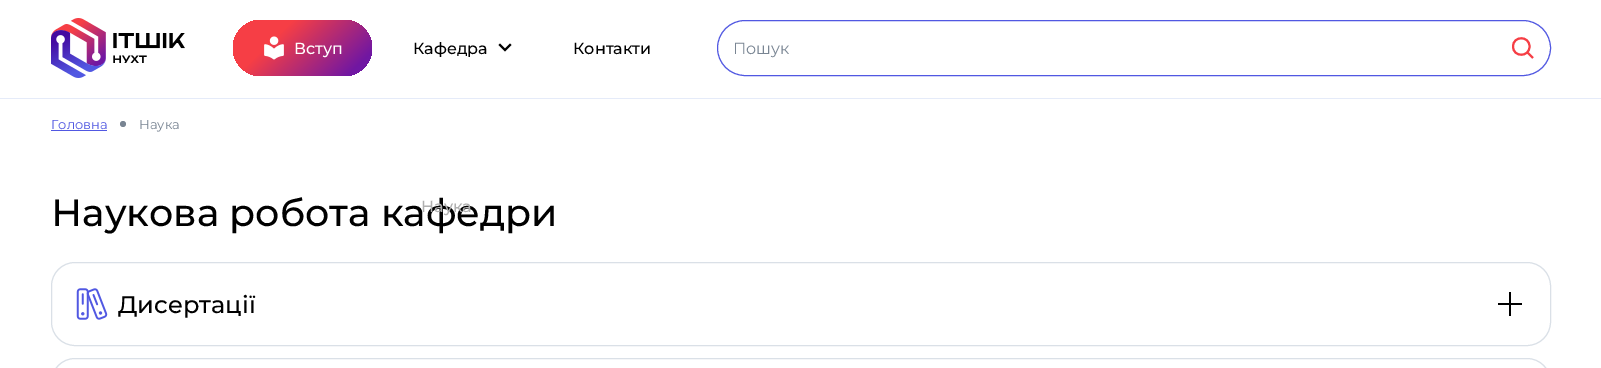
%!PS-Adobe-3.0
%%BoundingBox: 0 0 1601 368
%%LanguageLevel: 3
%%Pages: 1
%%EndComments
%%BeginProlog
/setink { 3 { 255 div 3 1 roll } repeat setrgbcolor } def
/usefont { [ exch dup neg 0 0 3 -1 roll 0 0 ] selectfont } def
/drawtext { setink usefont moveto show } def
/fillbox { setink rectfill } def
/disc { newpath 0 360 arc closepath } def
/rrect { 5 dict begin { /r /h /w /y /x } { exch def } forall
  x r add y moveto x w add y 2 copy h add r arct x w add y h add x 1 index r arct
  x y h add x y r arct x y 2 copy exch w add exch r arct closepath end } def
/drawimage { 5 dict begin { /h /w /y /x /name } { exch def } forall
  gsave x y translate w h scale
  w h 8 [w 0 0 h 0 0] name (r) file false 3 colorimage grestore end } def
%%EndProlog
%%BeginSetup
<< /PageSize [1601 368] >> setpagedevice
%%EndSetup
%%Page: 1 1
0 368 translate 1 -1 scale
4 setmiterlimit
0 0 1601 368 255 255 255 fillbox
0 98 1601 1 229 235 249 fillbox
(assets/img1.rgb) 51 18 134 60 drawimage
gsave 233 20 139 56 28 rrect clip newpath
<< /ShadingType 2 /ColorSpace /DeviceRGB /Coords [255 -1.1 350 97] /Extend [true true] /Function << /FunctionType 3 /Domain [0 1] /Functions [<< /FunctionType 2 /Domain [0 1] /C0 [0.965 0.243 0.271] /C1 [0.965 0.243 0.271] /N 1 >> << /FunctionType 2 /Domain [0 1] /C0 [0.965 0.243 0.271] /C1 [0.439 0.09 0.639] /N 1 >> << /FunctionType 2 /Domain [0 1] /C0 [0.439 0.09 0.639] /C1 [0.439 0.09 0.639] /N 1 >>] /Bounds [0.31 0.88] /Encode [0 1 0 1 0 1] >> >> shfill grestore
(assets/img2.rgb) 264 36 20 24 drawimage
(Вступ) 294 54 /Montserrat-Medium 16 255 255 255 drawtext
(Кафедра) 413 54 /Montserrat-Medium 16 0 0 0 drawtext
2 setlinewidth
2 setlinecap
500 45 moveto 505 50 lineto 510 45 lineto stroke
(Наукова робота кафедри) 51 226 /Montserrat-Medium 38 0 0 0 drawtext
(Наука) 421 212 /Montserrat-Medium 16 176 176 176 drawtext
(Контакти) 573 54 /Montserrat-Medium 16 0 0 0 drawtext
81 88 226 setink
1 setlinewidth
0 setlinecap
717.5 20.5 833 55 27.5 rrect stroke
(Пошук) 733 54 /Montserrat-Regular 16 121 133 147 drawtext
246 62 69 setink
2 setlinewidth
1533 58 moveto 1527.5 52.5 lineto 1513 46.5 moveto 1513 57.5 1529.5 57.5 1529.5 46.5 curveto 1529.5 35.5 1513 35.5 1513 46.5 curveto closepath stroke
(Головна) 51 129 /Montserrat-Regular 13 81 88 226 drawtext
51 130 56 1 81 88 226 fillbox
121 133 147 setink
123 124 3 disc fill
(Наука) 139 129 /Montserrat-Regular 13 121 133 147 drawtext
218 224 231 setink
1 setlinewidth
51.5 262.5 1499 83 23.5 rrect stroke
(assets/img3.rgb) 76 288 32 32 drawimage
(Дисертації) 118 313 /Montserrat-Medium 24 0 0 0 drawtext
1498 303 24 2 0 0 0 fillbox
1509 292 2 24 0 0 0 fillbox
218 224 231 setink
51.5 358.5 1499 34 23.5 rrect stroke
showpage
%%EOF
